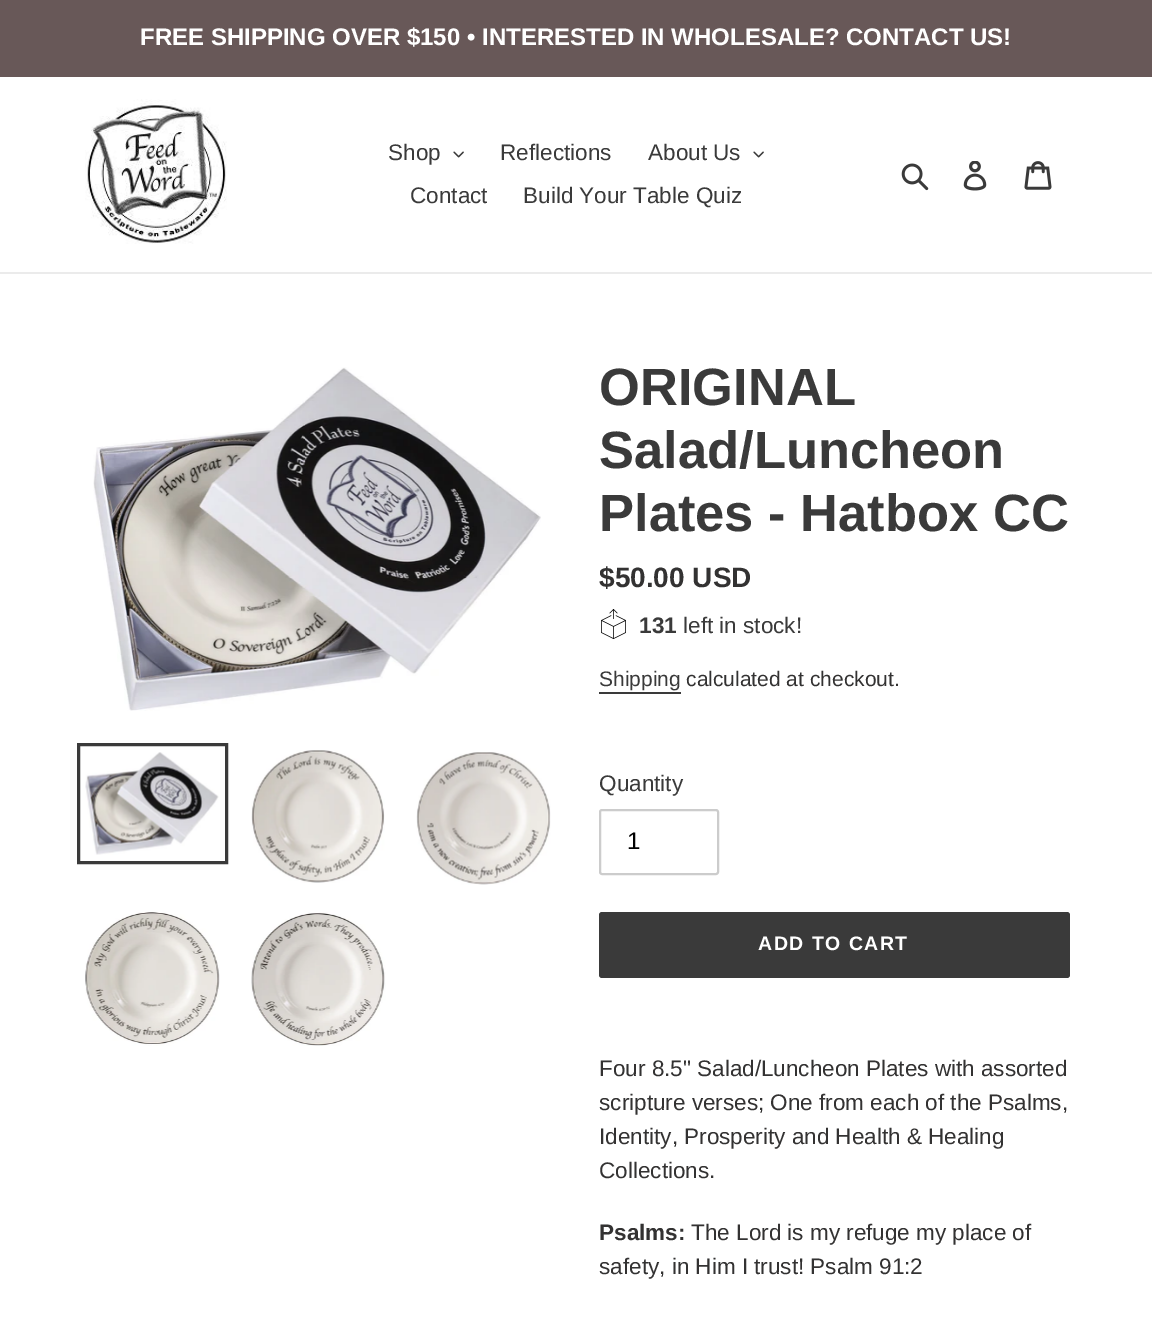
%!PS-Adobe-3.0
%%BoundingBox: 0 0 1152 1326
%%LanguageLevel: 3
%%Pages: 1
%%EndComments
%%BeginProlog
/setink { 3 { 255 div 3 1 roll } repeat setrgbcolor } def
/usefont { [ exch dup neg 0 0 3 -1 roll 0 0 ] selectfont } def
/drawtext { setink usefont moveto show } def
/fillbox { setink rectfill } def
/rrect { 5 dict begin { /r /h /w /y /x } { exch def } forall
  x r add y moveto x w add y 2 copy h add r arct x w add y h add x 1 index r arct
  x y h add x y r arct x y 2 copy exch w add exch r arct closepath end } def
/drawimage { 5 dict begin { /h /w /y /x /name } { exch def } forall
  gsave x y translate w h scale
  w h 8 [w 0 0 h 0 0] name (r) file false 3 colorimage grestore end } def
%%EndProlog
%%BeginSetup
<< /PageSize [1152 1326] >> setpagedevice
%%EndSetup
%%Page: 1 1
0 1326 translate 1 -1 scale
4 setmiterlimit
0 0 1152 1326 255 255 255 fillbox
0 0 1152 77 104 88 88 fillbox
(FREE SHIPPING OVER $150 • INTERESTED IN WHOLESALE? CONTACT US!) 140 45 /LiberationSans-Bold 24 255 255 255 drawtext
0 272 1152 2 235 235 235 fillbox
(assets/img1.rgb) 85 99 142 145 drawimage
(Shop) 388 160 /LiberationSans-Regular 22.5 58 58 58 drawtext
(assets/img2.rgb) 453 151 11 7 drawimage
(Reflections) 500 160 /LiberationSans-Regular 22.5 58 58 58 drawtext
(About Us) 648 160 /LiberationSans-Regular 22.5 58 58 58 drawtext
(assets/img2.rgb) 753 151 11 7 drawimage
(Contact) 410 203 /LiberationSans-Regular 22.5 58 58 58 drawtext
(Build Your Table Quiz) 523 203 /LiberationSans-Regular 22.5 58 58 58 drawtext
(assets/img3.rgb) 901 163 28 28 drawimage
(assets/img4.rgb) 963 161 24 30 drawimage
(assets/img5.rgb) 1024 161 28 29 drawimage
(assets/img6.rgb) 93 367 448 344 drawimage
3 setlinewidth
78.5 744.5 148 118 rectstroke
(assets/img7.rgb) 85 752 134 103 drawimage
(assets/img8.rgb) 251 750 134 133 drawimage
(assets/img9.rgb) 416 752 135 133 drawimage
(assets/img10.rgb) 85 912 135 134 drawimage
(assets/img11.rgb) 251 912 135 134 drawimage
(ORIGINAL) 599 405 /LiberationSans-Bold 52.5 58 58 58 drawtext
(Salad/Luncheon) 599 468 /LiberationSans-Bold 52.5 58 58 58 drawtext
(Plates - Hatbox CC) 599 531 /LiberationSans-Bold 52.5 58 58 58 drawtext
($50.00 USD) 599 587 /LiberationSans-Bold 28 51 50 50 drawtext
(assets/img12.rgb) 601 609 25 30 drawimage
(131) 639 633 /LiberationSans-Bold 22.5 58 58 58 drawtext
(left in stock!) 683 633 /LiberationSans-Regular 22.5 58 58 58 drawtext
(Shipping) 599 686 /LiberationSans-Regular 21 58 58 58 drawtext
599 692 82 2 58 58 58 fillbox
(calculated at checkout.) 686 686 /LiberationSans-Regular 21 51 50 50 drawtext
(Quantity) 599 791 /LiberationSans-Regular 22.5 58 58 58 drawtext
204 204 204 setink
2 setlinewidth
600 810 118 64 2 rrect stroke
(1) 627 849 /LiberationSans-Regular 24 0 0 0 drawtext
58 58 58 setink
599 912 471 66 3 rrect fill
/LiberationSans-Bold 19.5 usefont
255 255 255 setink
758 950 moveto 1.5 0 (ADD TO CART) ashow
(Four 8.5" Salad/Luncheon Plates with assorted) 599 1076 /LiberationSans-Regular 22.5 51 50 50 drawtext
(scripture verses; One from each of the Psalms,) 599 1110 /LiberationSans-Regular 22.5 51 50 50 drawtext
(Identity, Prosperity and Health & Healing) 599 1144 /LiberationSans-Regular 22.5 51 50 50 drawtext
(Collections.) 599 1178 /LiberationSans-Regular 22.5 51 50 50 drawtext
(Psalms:) 599 1240 /LiberationSans-Bold 22.5 51 50 50 drawtext
(The Lord is my refuge my place of) 691 1240 /LiberationSans-Regular 22.5 51 50 50 drawtext
(safety, in Him I trust! Psalm 91:2) 599 1274 /LiberationSans-Regular 22.5 51 50 50 drawtext
showpage
%%EOF
